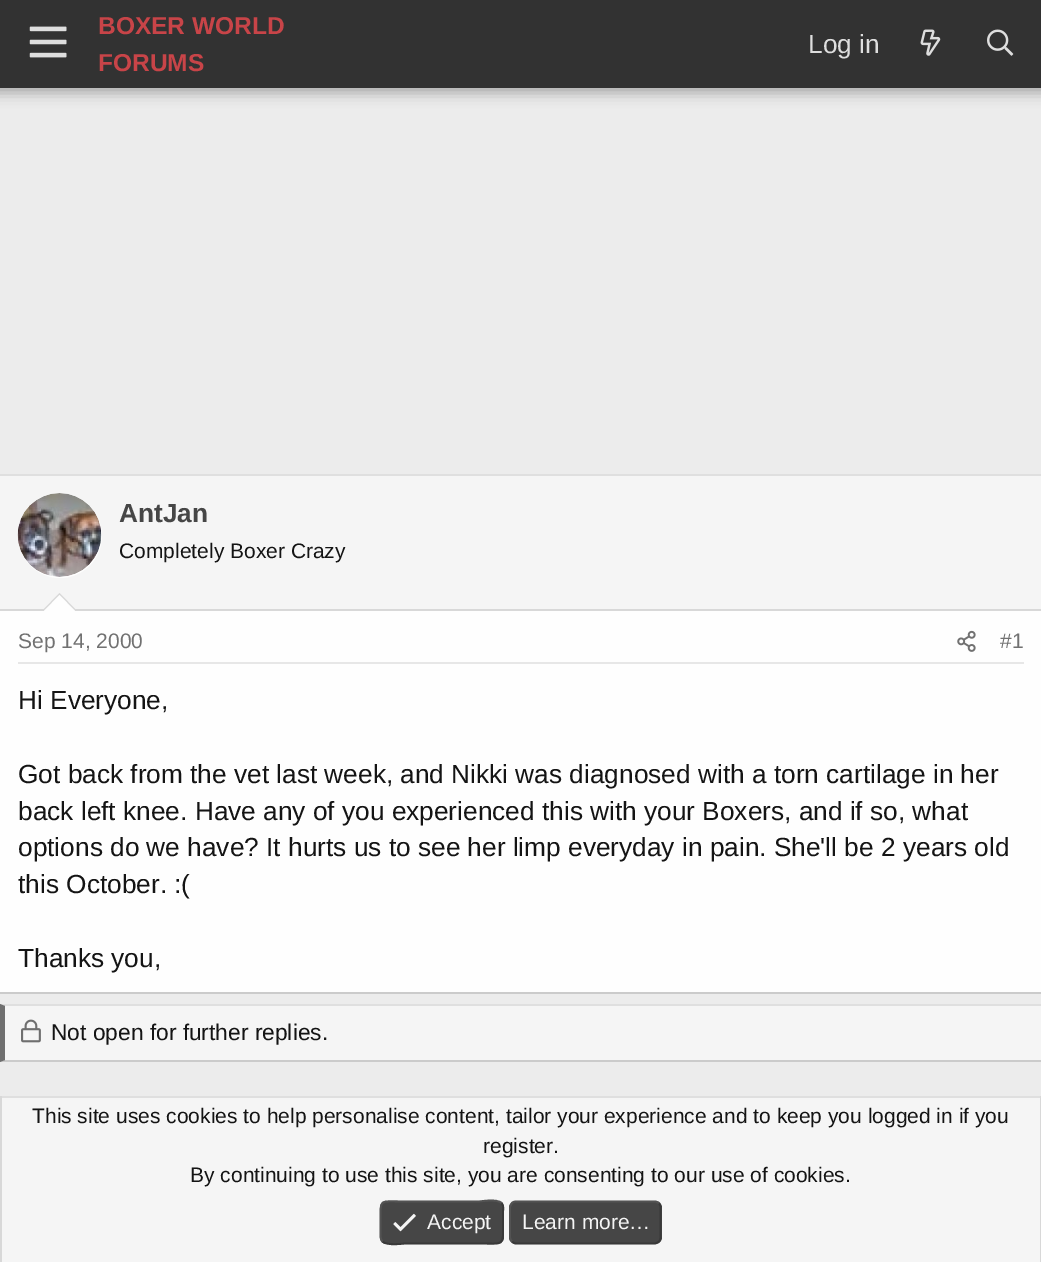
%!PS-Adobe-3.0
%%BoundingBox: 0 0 1041 1262
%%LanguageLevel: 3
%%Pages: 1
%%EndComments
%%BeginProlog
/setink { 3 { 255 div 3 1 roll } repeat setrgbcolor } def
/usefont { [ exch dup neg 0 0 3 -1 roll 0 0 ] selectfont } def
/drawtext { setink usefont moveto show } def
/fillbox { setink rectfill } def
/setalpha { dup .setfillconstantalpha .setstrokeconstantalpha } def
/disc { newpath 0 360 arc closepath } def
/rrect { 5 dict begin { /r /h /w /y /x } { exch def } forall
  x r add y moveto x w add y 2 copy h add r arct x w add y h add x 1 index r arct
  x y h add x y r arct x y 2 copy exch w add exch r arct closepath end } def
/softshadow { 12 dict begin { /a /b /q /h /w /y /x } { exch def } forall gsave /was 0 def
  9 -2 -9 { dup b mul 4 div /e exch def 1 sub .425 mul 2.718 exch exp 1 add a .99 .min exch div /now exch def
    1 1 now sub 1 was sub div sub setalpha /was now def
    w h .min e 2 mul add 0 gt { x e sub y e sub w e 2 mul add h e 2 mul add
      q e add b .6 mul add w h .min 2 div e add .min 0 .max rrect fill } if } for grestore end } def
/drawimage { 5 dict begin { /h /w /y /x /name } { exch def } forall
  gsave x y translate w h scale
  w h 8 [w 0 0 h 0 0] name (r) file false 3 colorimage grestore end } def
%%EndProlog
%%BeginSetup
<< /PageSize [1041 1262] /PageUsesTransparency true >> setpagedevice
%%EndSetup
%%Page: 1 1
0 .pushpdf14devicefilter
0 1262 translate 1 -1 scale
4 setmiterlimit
0 0 1041 1262 236 236 236 fillbox
0 0 0 setink
-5 -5 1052 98 0 7 0.3 softshadow
0 0 1041 88 50 50 50 fillbox
(assets/img1.rgb) 29 26 38 32 drawimage
(BOXER WORLD) 98 34 /LiberationSans-Bold 24.5 200 68 72 drawtext
(FORUMS) 98 71 /LiberationSans-Bold 24.5 200 68 72 drawtext
(Log in) 808 53 /LiberationSans-Regular 26.25 222 222 222 drawtext
(assets/img2.rgb) 920 29 21 27 drawimage
(assets/img3.rgb) 987 29 27 27 drawimage
0 611 1041 381 254 254 254 fillbox
0 474 1041 2 223 223 223 fillbox
0 992 1041 2 203 203 203 fillbox
0 476 1041 133 245 245 245 fillbox
0 609 1041 2 216 216 216 fillbox
254 254 254 setink
60 536 42 disc fill
(assets/img4.rgb) 17 493 85 84 drawimage
(AntJan) 119 522 /LiberationSans-Bold 26.25 70 70 70 drawtext
(Completely Boxer Crazy) 119 558 /LiberationSans-Regular 21 20 20 20 drawtext
216 216 216 setink
77 611 moveto 42 611 lineto 59.5 593 lineto closepath fill
254 254 254 setink
75 611 moveto 44 611 lineto 59.5 595 lineto closepath fill
18 662 1006 2 231 231 231 fillbox
(Sep 14, 2000) 18 648 /LiberationSans-Regular 21 113 113 113 drawtext
(assets/img5.rgb) 957 630 19 22 drawimage
(#1) 1000 648 /LiberationSans-Regular 21 113 113 113 drawtext
(Hi Everyone,) 18 709 /LiberationSans-Regular 26.25 20 20 20 drawtext
(Got back from the vet last week, and Nikki was diagnosed with a torn cartilage in her) 18 783 /LiberationSans-Regular 26.25 20 20 20 drawtext
(back left knee. Have any of you experienced this with your Boxers, and if so, what) 18 820 /LiberationSans-Regular 26.25 20 20 20 drawtext
(options do we have? It hurts us to see her limp everyday in pain. She'll be 2 years old) 18 856 /LiberationSans-Regular 26.25 20 20 20 drawtext
(this October. :\() 18 893 /LiberationSans-Regular 26.25 20 20 20 drawtext
(Thanks you,) 18 967 /LiberationSans-Regular 26.25 20 20 20 drawtext
0 1005 1041 57 245 245 245 fillbox
223 223 223 setink
0 1004 moveto 1041 1004 lineto 1041 1006 lineto 5 1006 lineto closepath fill
203 203 203 setink
1041 1062 moveto 0 1062 lineto 5 1060 lineto 1041 1060 lineto closepath fill
111 111 111 setink
0 1062 moveto 0 1004 lineto 5 1006 lineto 5 1060 lineto closepath fill
(assets/img6.rgb) 21 1019 20 24 drawimage
(Not open for further replies.) 51 1040 /LiberationSans-Regular 22.75 20 20 20 drawtext
2 1098 1038 164 245 245 245 fillbox
0 1096 1041 2 223 223 223 fillbox
1040 1096 1 166 216 216 216 fillbox
0 1096 2 166 216 216 216 fillbox
(This site uses cookies to help personalise content, tailor your experience and to keep you logged in if you) 32 1123 /LiberationSans-Regular 21 20 20 20 drawtext
(register.) 483 1153 /LiberationSans-Regular 21 20 20 20 drawtext
(By continuing to use this site, you are consenting to our use of cookies.) 190 1182 /LiberationSans-Regular 21 20 20 20 drawtext
70 70 70 setink
380 1201 124 43 7 rrect fill
57 57 57 setink
1.8 setlinewidth
501.5 1203 moveto 504 1205.5 503 1209.5 503 1212.5 curveto 503 1222.5 lineto 503 1247 505 1243.5 478.5 1243.5 curveto 405 1243.5 lineto 403.5 1243.5 387 1246 382.5 1241.5 curveto stroke
83 83 83 setink
382.5 1241.5 moveto 380 1239 380.5 1235.5 380.5 1232.5 curveto 380.5 1222.5 lineto 380.5 1197.5 378.5 1201.5 405 1201.5 curveto 478.5 1201.5 lineto 480.5 1201.5 497 1198.5 501.5 1203 curveto stroke
(assets/img7.rgb) 393 1213 23 19 drawimage
(Accept) 427 1229 /LiberationSans-Regular 21 245 245 245 drawtext
70 70 70 setink
509 1201 153 43 7 rrect fill
57 57 57 setink
659 1203 moveto 660 1204.5 660.5 1206 660.5 1207.5 curveto 660.5 1237 lineto 660.5 1239 660 1240.5 659 1241.5 curveto 657.5 1242.5 656 1243.5 654.5 1243.5 curveto 516 1243.5 lineto 514.5 1243.5 513 1242.5 512 1241.5 curveto stroke
83 83 83 setink
512 1241.5 moveto 511 1240.5 510 1239 510 1237 curveto 510 1207.5 lineto 510 1206 511 1204.5 512 1203 curveto 513 1202 514.5 1201.5 516 1201.5 curveto 654.5 1201.5 lineto 656 1201.5 657.5 1202 659 1203 curveto stroke
(Learn more…) 522 1229 /LiberationSans-Regular 21 245 245 245 drawtext
.poppdf14devicefilter showpage
%%EOF
